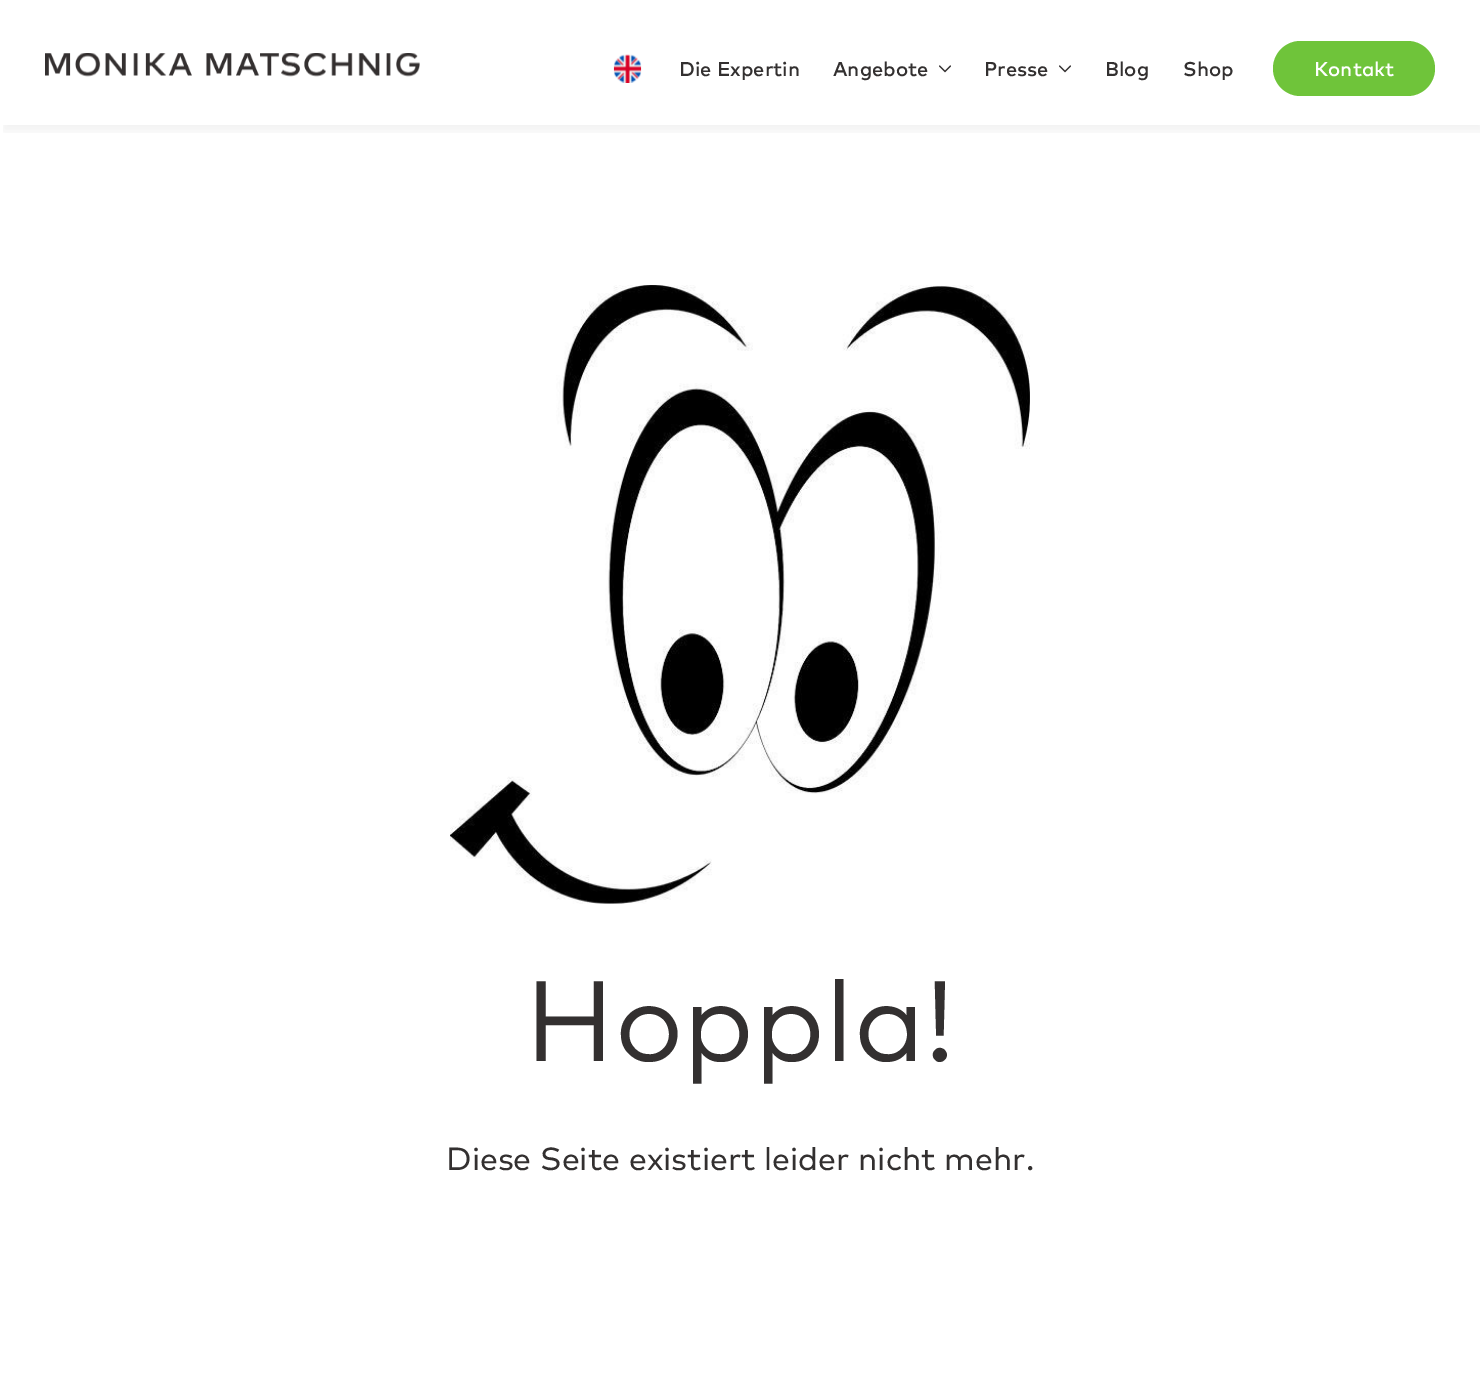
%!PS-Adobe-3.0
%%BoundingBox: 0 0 1480 1373
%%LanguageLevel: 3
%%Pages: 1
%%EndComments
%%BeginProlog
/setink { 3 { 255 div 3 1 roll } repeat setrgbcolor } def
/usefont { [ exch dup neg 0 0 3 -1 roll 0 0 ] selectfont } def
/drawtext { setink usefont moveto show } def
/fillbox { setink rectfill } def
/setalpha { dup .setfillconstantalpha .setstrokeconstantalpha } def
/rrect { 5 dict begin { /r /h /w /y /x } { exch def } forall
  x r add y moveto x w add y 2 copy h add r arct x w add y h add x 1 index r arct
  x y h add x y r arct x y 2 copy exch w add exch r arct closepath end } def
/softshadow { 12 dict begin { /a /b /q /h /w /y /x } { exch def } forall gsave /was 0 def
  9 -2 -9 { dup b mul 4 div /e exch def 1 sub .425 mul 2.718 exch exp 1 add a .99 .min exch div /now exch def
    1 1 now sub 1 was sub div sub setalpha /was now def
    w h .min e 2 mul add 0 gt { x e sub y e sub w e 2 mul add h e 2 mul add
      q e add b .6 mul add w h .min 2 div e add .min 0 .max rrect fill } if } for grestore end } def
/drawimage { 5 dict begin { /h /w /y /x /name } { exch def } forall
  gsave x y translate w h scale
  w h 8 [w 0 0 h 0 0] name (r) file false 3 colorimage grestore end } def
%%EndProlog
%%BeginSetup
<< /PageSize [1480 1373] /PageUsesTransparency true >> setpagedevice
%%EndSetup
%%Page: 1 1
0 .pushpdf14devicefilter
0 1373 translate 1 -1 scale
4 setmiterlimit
0 0 1480 1373 255 255 255 fillbox
gsave
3 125 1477 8 rectclip
0 0 0 setink
3 6 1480 125 0 6 0.05 softshadow
grestore
(assets/img1.rgb) 45 53 375 24 drawimage
(assets/img2.rgb) 613 54 29 29 drawimage
(Die Expertin) 679 76 /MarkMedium-Medium 20 51 48 48 drawtext
(Angebote) 833 76 /MarkMedium-Medium 20 51 48 48 drawtext
(assets/img3.rgb) 939 65 12 8 drawimage
(Presse) 984 76 /MarkMedium-Medium 20 51 48 48 drawtext
(assets/img3.rgb) 1059 65 12 8 drawimage
(Blog) 1105 76 /MarkMedium-Medium 20 51 48 48 drawtext
(Shop) 1183 76 /MarkMedium-Medium 20 51 48 48 drawtext
111 196 58 setink
1273 41 162 55 27.5 rrect fill
(Kontakt) 1314 76 /MarkMedium-Medium 20 255 255 255 drawtext
(assets/img4.rgb) 450 285 580 619 drawimage
(Hoppla!) 525 1061 /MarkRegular-Regular 114 51 48 48 drawtext
(Diese Seite existiert leider nicht mehr.) 446 1170 /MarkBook-Regular 32 51 48 48 drawtext
.poppdf14devicefilter showpage
%%EOF
